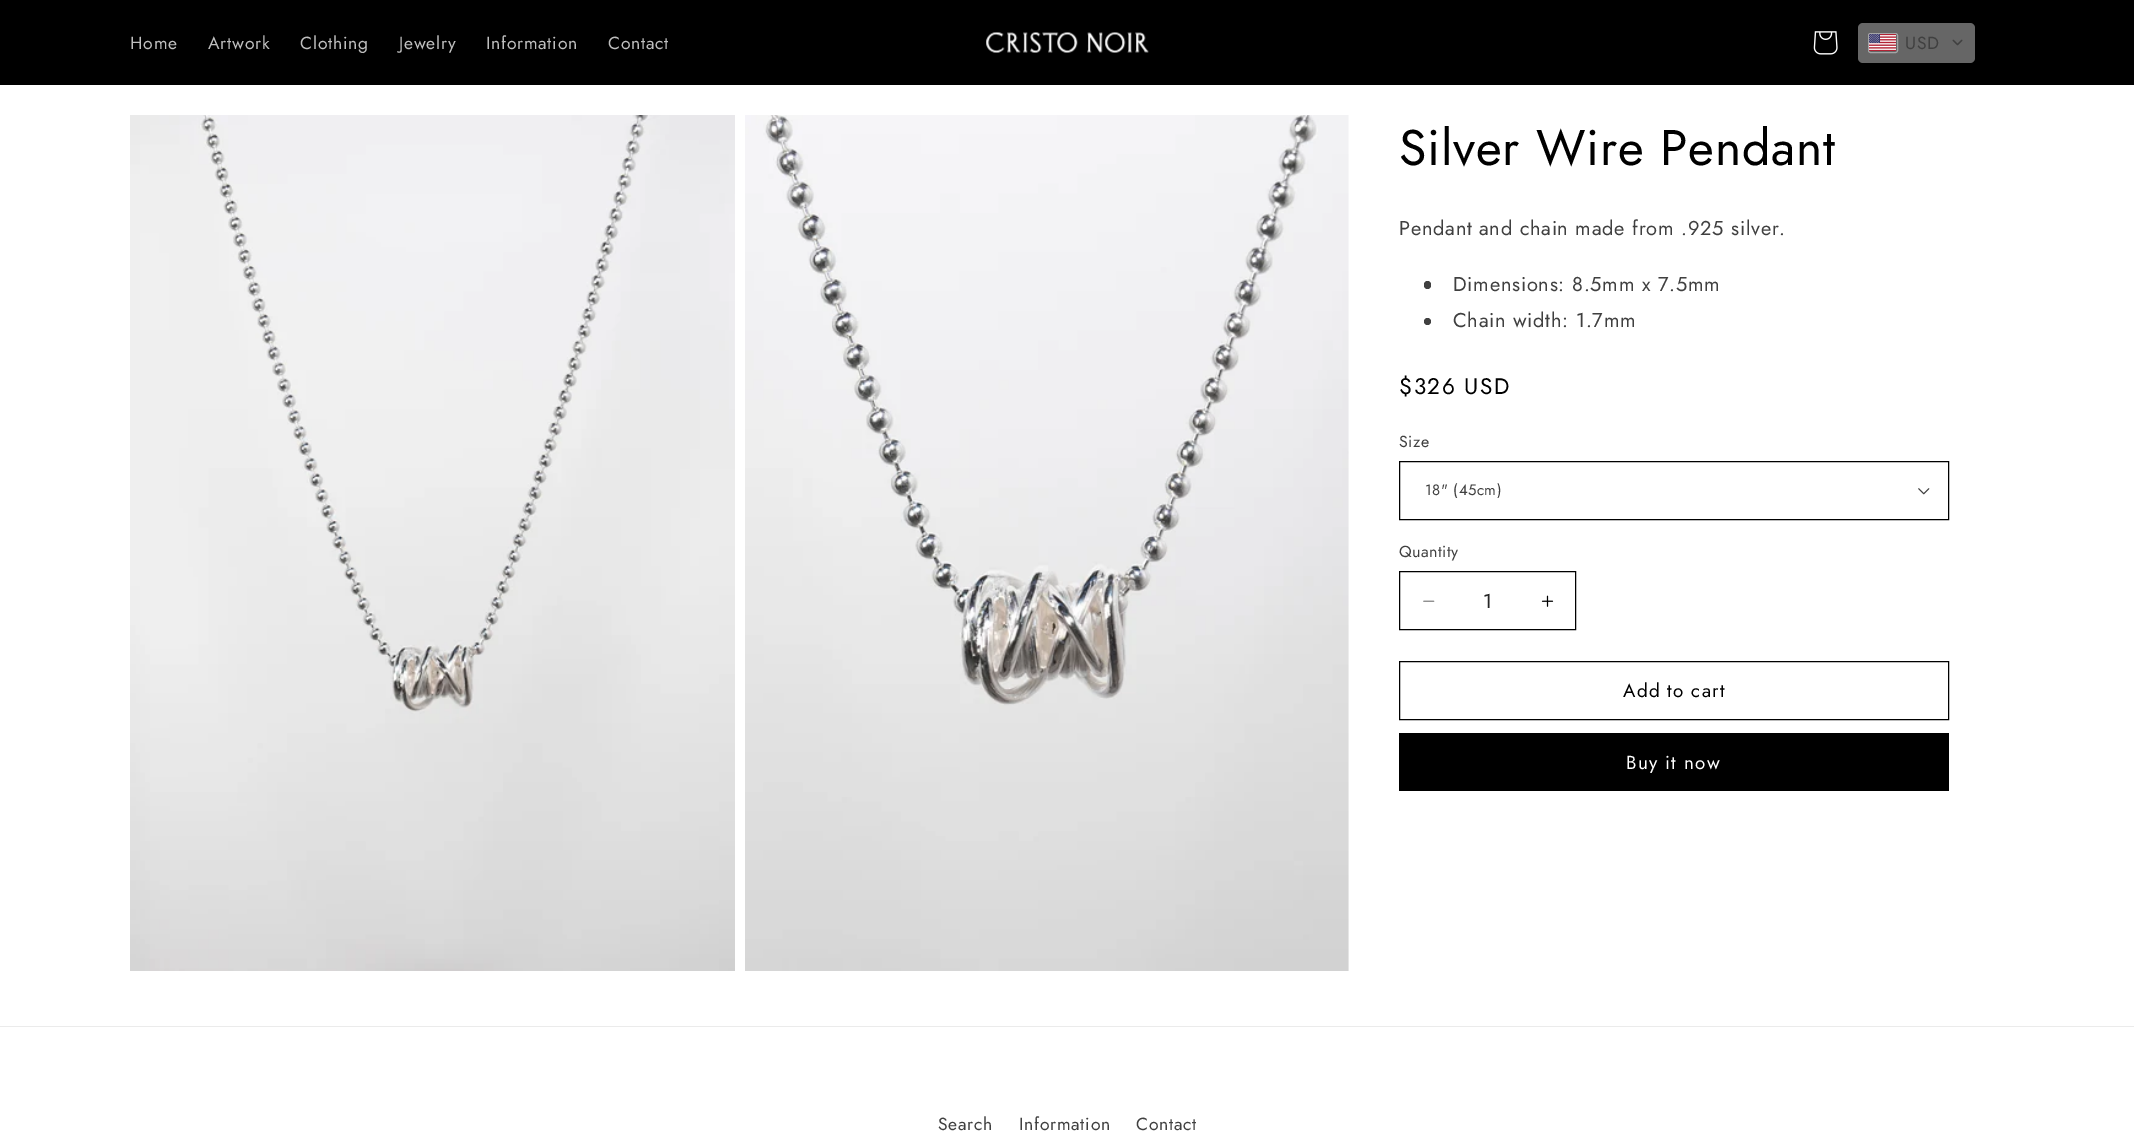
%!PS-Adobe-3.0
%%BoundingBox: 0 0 2134 1137
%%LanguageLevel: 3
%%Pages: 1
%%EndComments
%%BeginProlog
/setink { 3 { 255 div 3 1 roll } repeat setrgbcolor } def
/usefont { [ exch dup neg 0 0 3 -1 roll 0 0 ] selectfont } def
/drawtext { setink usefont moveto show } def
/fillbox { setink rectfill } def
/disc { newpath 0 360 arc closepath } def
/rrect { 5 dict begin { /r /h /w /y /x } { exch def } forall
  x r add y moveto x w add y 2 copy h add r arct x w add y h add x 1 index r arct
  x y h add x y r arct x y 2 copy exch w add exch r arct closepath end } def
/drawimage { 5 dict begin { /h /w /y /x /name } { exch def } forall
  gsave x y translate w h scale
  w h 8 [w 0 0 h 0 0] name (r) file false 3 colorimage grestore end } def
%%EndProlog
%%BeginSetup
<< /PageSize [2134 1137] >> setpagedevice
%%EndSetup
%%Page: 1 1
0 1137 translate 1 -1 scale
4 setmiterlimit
0 0 2134 1137 255 255 255 fillbox
0 0 2134 85 0 0 0 fillbox
/Jost-Regular 17.5 usefont
191 191 191 setink
130 49 moveto 0.75 0 (Home) ashow
208 49 moveto 0.75 0 (Artwork) ashow
300 49 moveto 0.75 0 (Clothing) ashow
399 49 moveto 0.75 0 (Jewelry) ashow
486 49 moveto 0.75 0 (Information) ashow
608 49 moveto 0.75 0 (Contact) ashow
(assets/img1.rgb) 986 32 163 21 drawimage
(assets/img2.rgb) 1813 31 25 24 drawimage
102 102 102 setink
1858 23 117 40 5 rrect fill
164 165 166 setink
1868.5 33.5 29 19 2 rrect stroke
(assets/img3.rgb) 1869 34 27 17 drawimage
64 64 64 setink
1905 49 moveto 0.75 0 (USD) ashow
(assets/img4.rgb) 1952 39 11 7 drawimage
(assets/img5.rgb) 130 115 605 856 drawimage
(assets/img6.rgb) 745 115 604 856 drawimage
/Jost-Regular 50 usefont
0 0 0 setink
1399 165 moveto 0.75 0 (Silver Wire Pendant) ashow
/Jost-Regular 20 usefont
64 64 64 setink
1399 235 moveto 0.75 0 (Pendant and chain made from .925 silver.) ashow
1424 281 7 8 3.5 rrect fill
1453 291 moveto 0.75 0 (Dimensions: 8.5mm x 7.5mm) ashow
1427.5 321.5 3.5 disc fill
1453 327 moveto 0.75 0 (Chain width: 1.7mm) ashow
/Jost-Regular 22.5 usefont
0 0 0 setink
1399 394 moveto 1.5 0 ($326 USD) ashow
/Jost-Regular 16 usefont
64 64 64 setink
1399 447 moveto 0.5 0 (Size) ashow
(assets/img7.rgb) 1918 488 12 7 drawimage
0 0 0 setink
1399.5 461.5 549 58 rectstroke
/Jost-Regular 15 usefont
64 64 64 setink
1425 495 moveto 0.5 0 (18" \(45cm\)) ashow
/Jost-Regular 16 usefont
1399 557 moveto 0.5 0 (Quantity) ashow
(assets/img8.rgb) 1423 600 12 2 drawimage
(assets/img9.rgb) 1541 595 13 12 drawimage
0 0 0 setink
1399.5 571.5 176 58 rectstroke
(1) 1483 608 /Jost-Regular 20 38 38 38 drawtext
0 0 0 setink
1399.5 661.5 549 58 rectstroke
/Jost-Regular 18.75 usefont
1623 697 moveto 1.25 0 (Add to cart) ashow
1399 733 550 58 0 0 0 fillbox
255 255 255 setink
1626 769 moveto 1.25 0 (Buy it now) ashow
0 1026 2134 1 235 235 235 fillbox
/Jost-Regular 17.5 usefont
64 64 64 setink
938 1130 moveto 0.75 0 (Search) ashow
1019 1130 moveto 0.75 0 (Information) ashow
1136 1130 moveto 0.75 0 (Contact) ashow
showpage
%%EOF
